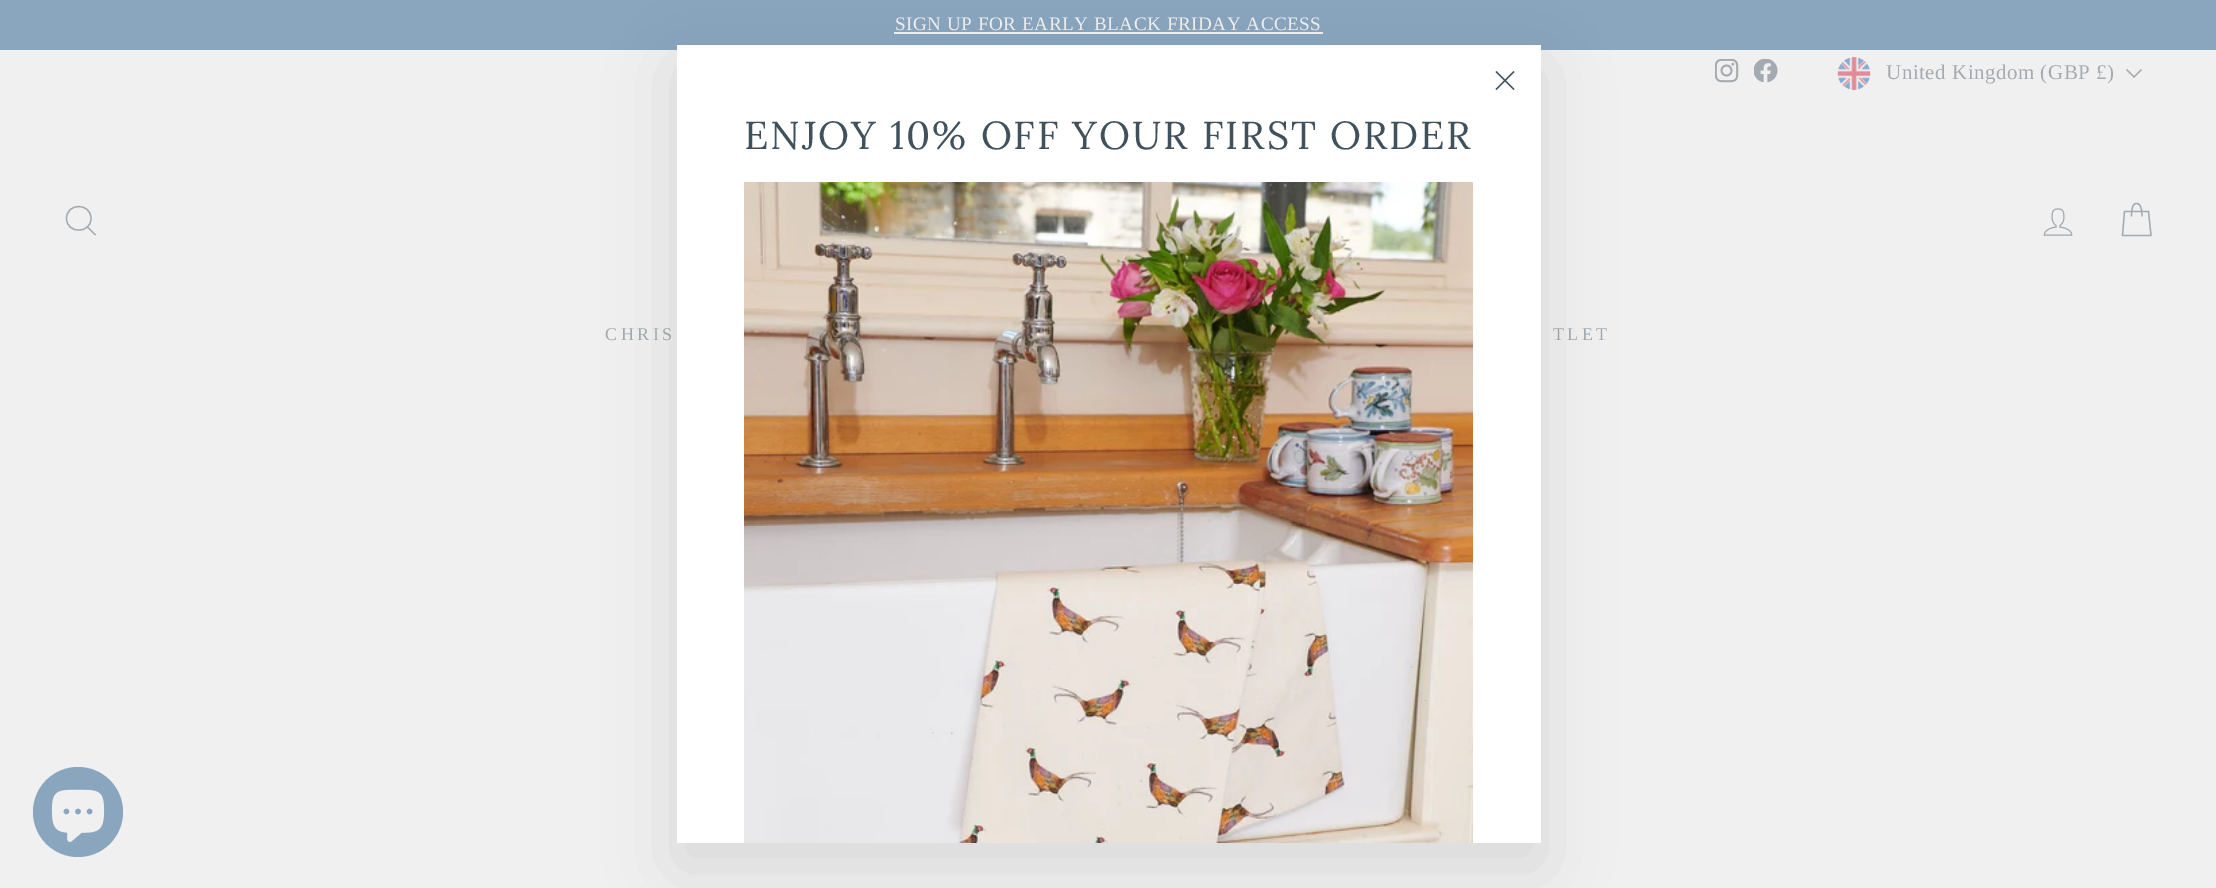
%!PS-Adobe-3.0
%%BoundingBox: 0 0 2216 888
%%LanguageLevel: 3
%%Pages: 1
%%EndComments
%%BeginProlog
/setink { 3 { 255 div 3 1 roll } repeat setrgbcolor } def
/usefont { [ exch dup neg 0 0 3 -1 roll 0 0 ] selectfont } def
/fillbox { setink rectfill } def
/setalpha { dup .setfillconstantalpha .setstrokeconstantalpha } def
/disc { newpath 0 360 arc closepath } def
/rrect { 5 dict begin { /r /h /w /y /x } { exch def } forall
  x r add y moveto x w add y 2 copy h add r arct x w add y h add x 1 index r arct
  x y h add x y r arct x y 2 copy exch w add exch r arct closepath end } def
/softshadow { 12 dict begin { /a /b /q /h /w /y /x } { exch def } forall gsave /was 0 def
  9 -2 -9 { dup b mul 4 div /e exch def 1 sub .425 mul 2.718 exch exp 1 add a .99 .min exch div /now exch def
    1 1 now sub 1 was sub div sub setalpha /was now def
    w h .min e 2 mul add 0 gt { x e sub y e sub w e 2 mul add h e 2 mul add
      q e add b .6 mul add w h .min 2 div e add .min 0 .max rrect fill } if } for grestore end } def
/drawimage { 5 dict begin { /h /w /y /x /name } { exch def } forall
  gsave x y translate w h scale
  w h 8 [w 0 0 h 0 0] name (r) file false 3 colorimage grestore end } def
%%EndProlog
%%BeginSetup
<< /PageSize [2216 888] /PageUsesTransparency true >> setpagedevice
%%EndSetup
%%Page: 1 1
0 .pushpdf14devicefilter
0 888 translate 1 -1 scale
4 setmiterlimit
0 0 2216 888 240 240 240 fillbox
0 0 2216 50 138 166 191 fillbox
/LiberationSerif-Regular 19.1 usefont
240 240 240 setink
895 30 moveto 0.55 0 (SIGN UP FOR EARLY BLACK FRIDAY ACCESS) ashow
894 32 429 2 240 240 240 fillbox
(assets/img1.rgb) 1715 59 24 24 drawimage
(assets/img2.rgb) 1754 59 24 24 drawimage
(assets/img3.rgb) 1837 57 34 33 drawimage
/LiberationSerif-Regular 21 usefont
164 170 175 setink
1886 79 moveto 0.5 0 (United Kingdom \(GBP £\)) ashow
1.2 setlinewidth
2126.5 69.5 moveto 2134 77 lineto 2141.5 69.5 lineto stroke
1.3 setlinewidth
91 218.5 moveto 91 234 66.5 234 66.5 218.5 curveto 66.5 202.5 91 202.5 91 218.5 curveto closepath 95.5 235 moveto 87.5 227 lineto stroke
(assets/img4.rgb) 2043 208 30 28 drawimage
2131.5 216.5 moveto 2131.5 206 2133.5 203.5 2136.5 203.5 curveto 2139.5 203.5 2142 206 2142 216.5 curveto 2124.5 211.5 moveto 2148.5 211.5 lineto 2151 235.5 lineto 2122.5 235.5 lineto closepath stroke
/LiberationSerif-Regular 18 usefont
605 340 moveto 3.5 0 (CHRIS) ashow
1553 340 moveto 3.5 0 (TLET) ashow
0 0 0 setink
677 68 864 798 0 34 0.1 softshadow
677 45 864 798 255 255 255 fillbox
64 81 92 setink
1496 71.5 moveto 1514 89.5 lineto 1514 71.5 moveto 1496 89.5 lineto stroke
/Lora-Regular 39 usefont
744 149 moveto 1.95 0 (ENJOY 10% OFF YOUR FIRST ORDER) ashow
(assets/img5.rgb) 744 182 729 661 drawimage
138 166 191 setink
78 812 45 disc fill
(assets/img6.rgb) 51 789 54 53 drawimage
.poppdf14devicefilter showpage
%%EOF
